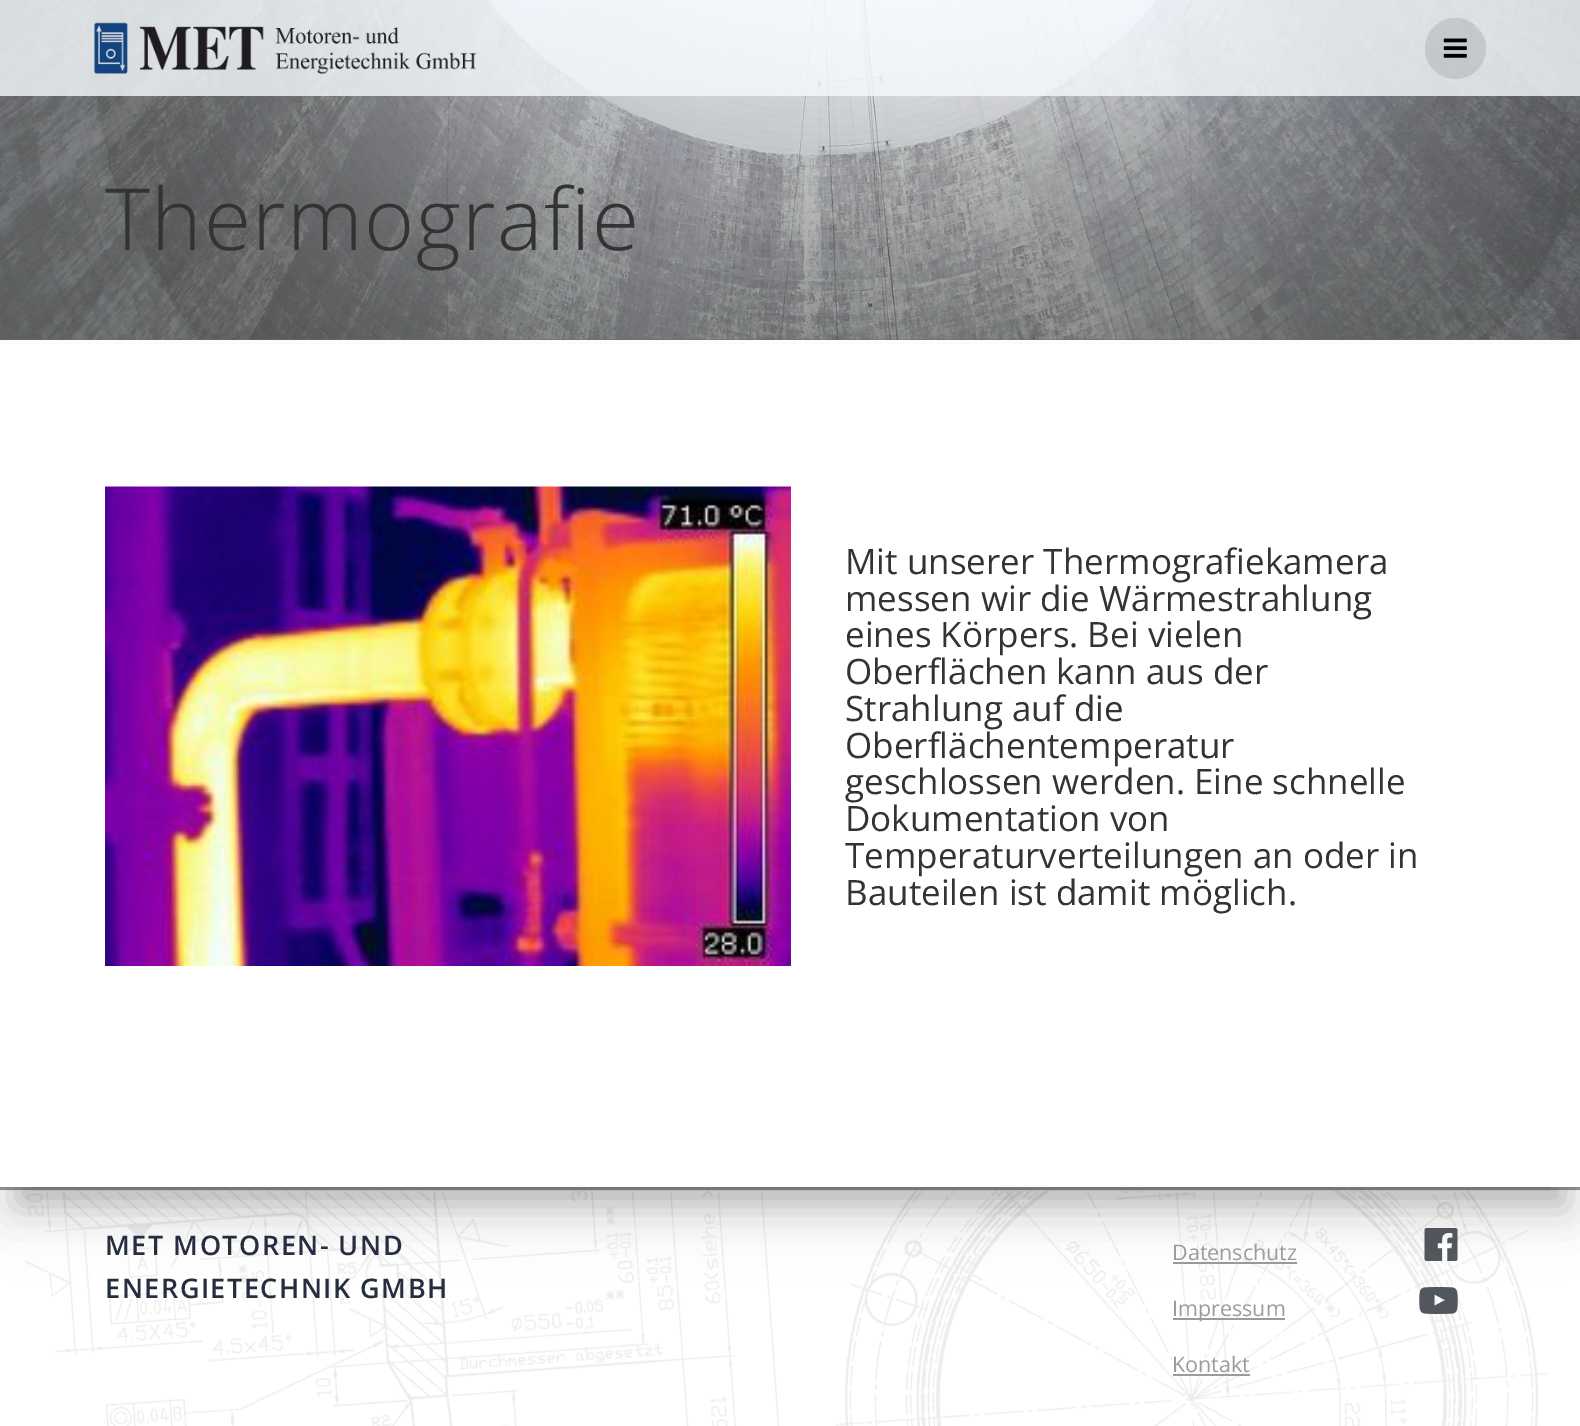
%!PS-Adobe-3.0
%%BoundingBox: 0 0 1580 1426
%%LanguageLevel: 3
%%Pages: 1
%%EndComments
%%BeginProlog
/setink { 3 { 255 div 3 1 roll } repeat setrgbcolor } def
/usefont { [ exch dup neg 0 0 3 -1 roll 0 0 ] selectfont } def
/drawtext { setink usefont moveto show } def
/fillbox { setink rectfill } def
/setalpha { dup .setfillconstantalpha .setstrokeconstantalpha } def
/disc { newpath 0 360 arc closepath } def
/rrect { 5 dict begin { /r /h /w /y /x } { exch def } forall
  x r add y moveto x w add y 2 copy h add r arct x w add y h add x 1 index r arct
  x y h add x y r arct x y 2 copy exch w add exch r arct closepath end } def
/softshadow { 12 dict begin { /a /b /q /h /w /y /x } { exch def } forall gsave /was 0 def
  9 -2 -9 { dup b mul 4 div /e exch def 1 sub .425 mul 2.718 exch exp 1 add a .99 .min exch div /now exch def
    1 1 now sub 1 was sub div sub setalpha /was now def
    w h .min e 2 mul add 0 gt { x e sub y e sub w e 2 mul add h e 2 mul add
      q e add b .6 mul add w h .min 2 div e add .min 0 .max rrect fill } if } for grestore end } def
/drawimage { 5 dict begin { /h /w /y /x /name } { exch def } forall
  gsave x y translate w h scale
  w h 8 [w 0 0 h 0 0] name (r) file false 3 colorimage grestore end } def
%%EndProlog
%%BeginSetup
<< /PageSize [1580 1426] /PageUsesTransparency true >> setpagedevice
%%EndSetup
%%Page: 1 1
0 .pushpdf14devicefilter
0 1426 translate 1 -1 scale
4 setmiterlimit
0 0 1580 1426 255 255 255 fillbox
0 339 1580 1 105 107 108 fillbox
(assets/img3.rgb) 0 0 1580 340 drawimage
0.8 setalpha
0 0 1580 96 245 250 253 fillbox
1 setalpha
(assets/img1.rgb) 94 22 382 52 drawimage
0.1 setalpha
0 0 0 setink
1455.5 48.5 30.5 disc fill
1 setalpha
(assets/img2.rgb) 1443 38 24 20 drawimage
/OpenSans-Light 85.75 usefont
51 51 51 setink
105 250 moveto 1.5 0 (Thermografie) ashow
(assets/img5.rgb) 24 1191 1525 235 drawimage
0 1187 1580 3 153 153 153 fillbox
0 1190 1580 1 248 248 248 fillbox
1173 1262 124 2 155 155 155 fillbox
(assets/img6.rgb) 1424 1228 34 33 drawimage
(assets/img7.rgb) 1419 1287 39 27 drawimage
0 0 0 setink
0 375 1580 847 0 26 0.08 softshadow
49 52 57 setink
18 392 1545 812 0 17.5 0.3 softshadow
0 344 1580 843 255 255 255 fillbox
(assets/img4.rgb) 105 486 686 480 drawimage
(Mit unserer Thermografiekamera) 845 574 /OpenSans-Regular 35 51 51 51 drawtext
(messen wir die Wärmestrahlung) 845 611 /OpenSans-Regular 35 51 51 51 drawtext
(eines Körpers. Bei vielen) 845 647 /OpenSans-Regular 35 51 51 51 drawtext
(Oberflächen kann aus der) 845 684 /OpenSans-Regular 35 51 51 51 drawtext
(Strahlung auf die) 845 721 /OpenSans-Regular 35 51 51 51 drawtext
(Oberflächentemperatur) 845 758 /OpenSans-Regular 35 51 51 51 drawtext
(geschlossen werden. Eine schnelle) 845 794 /OpenSans-Regular 35 51 51 51 drawtext
(Dokumentation von) 845 831 /OpenSans-Regular 35 51 51 51 drawtext
(Temperaturverteilungen an oder in) 845 868 /OpenSans-Regular 35 51 51 51 drawtext
(Bauteilen ist damit möglich.) 845 905 /OpenSans-Regular 35 51 51 51 drawtext
/OpenSans-SemiBold 27 usefont
38 45 63 setink
105 1255 moveto 1.5 0 (MET MOTOREN- UND) ashow
105 1298 moveto 1.5 0 (ENERGIETECHNIK GMBH) ashow
(Datenschutz) 1172 1260 /OpenSans-Regular 21.5 155 155 155 drawtext
1173 1318 112 2 155 155 155 fillbox
(Impressum) 1172 1316 /OpenSans-Regular 21.5 155 155 155 drawtext
(Kontakt) 1172 1372 /OpenSans-Regular 21.5 155 155 155 drawtext
1173 1374 77 2 155 155 155 fillbox
.poppdf14devicefilter showpage
%%EOF
